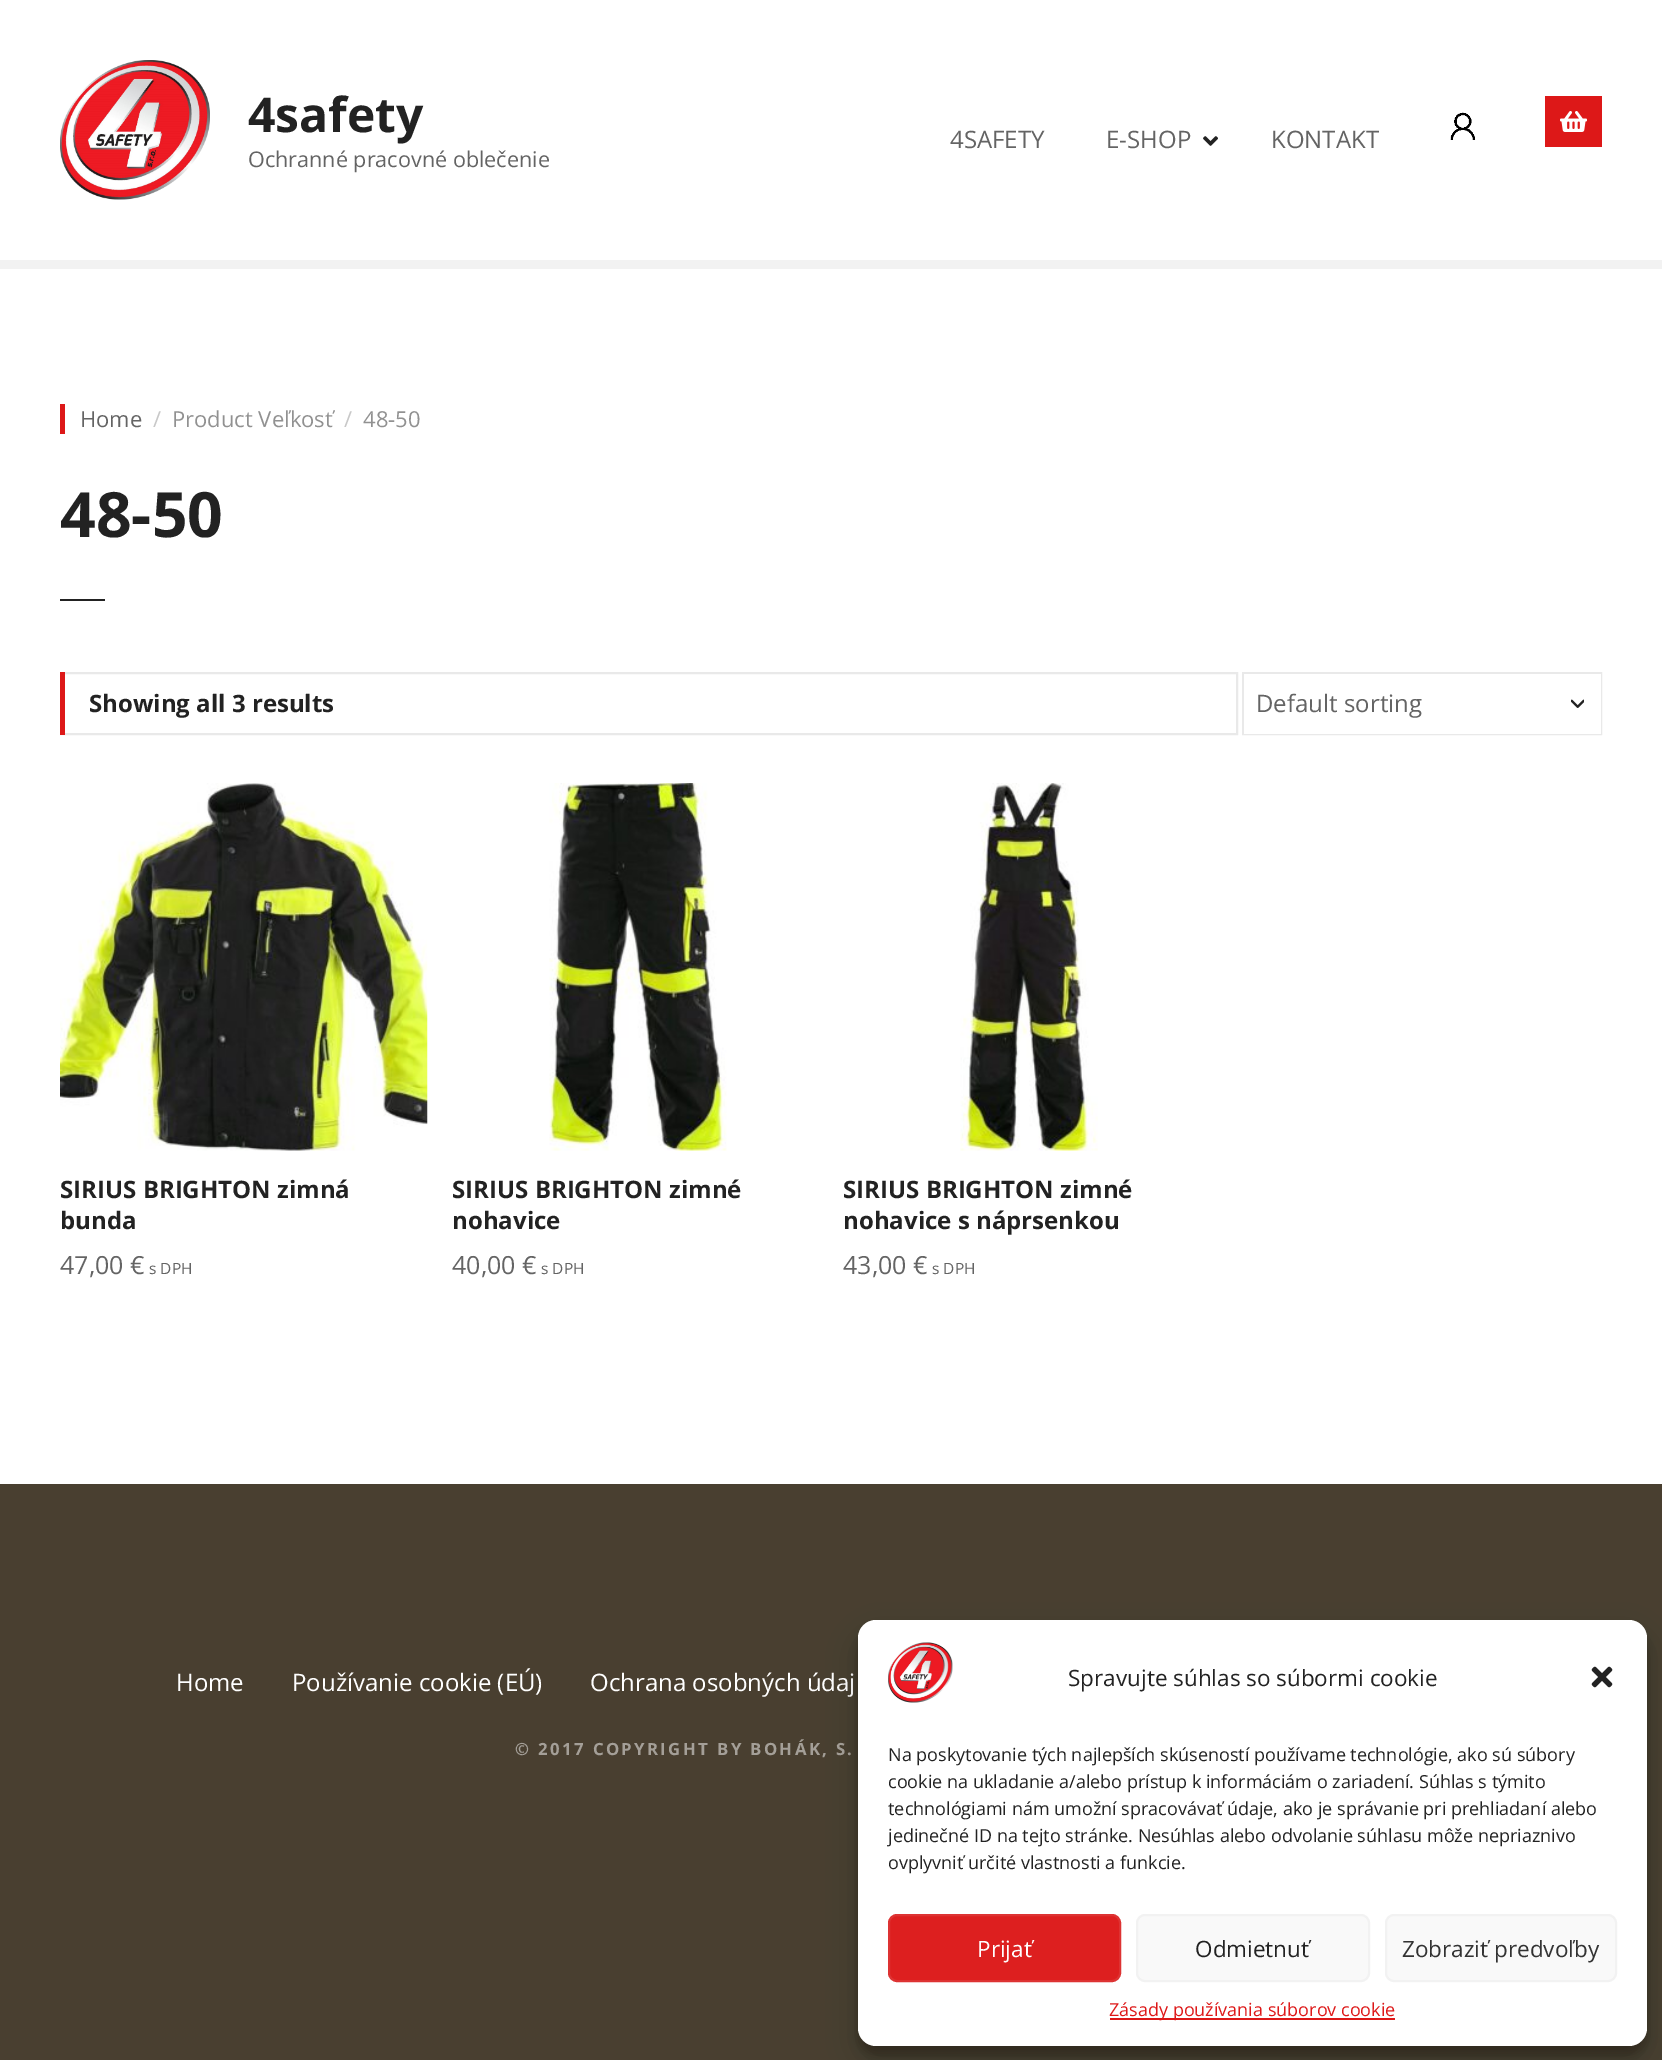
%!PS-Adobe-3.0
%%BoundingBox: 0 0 1662 2060
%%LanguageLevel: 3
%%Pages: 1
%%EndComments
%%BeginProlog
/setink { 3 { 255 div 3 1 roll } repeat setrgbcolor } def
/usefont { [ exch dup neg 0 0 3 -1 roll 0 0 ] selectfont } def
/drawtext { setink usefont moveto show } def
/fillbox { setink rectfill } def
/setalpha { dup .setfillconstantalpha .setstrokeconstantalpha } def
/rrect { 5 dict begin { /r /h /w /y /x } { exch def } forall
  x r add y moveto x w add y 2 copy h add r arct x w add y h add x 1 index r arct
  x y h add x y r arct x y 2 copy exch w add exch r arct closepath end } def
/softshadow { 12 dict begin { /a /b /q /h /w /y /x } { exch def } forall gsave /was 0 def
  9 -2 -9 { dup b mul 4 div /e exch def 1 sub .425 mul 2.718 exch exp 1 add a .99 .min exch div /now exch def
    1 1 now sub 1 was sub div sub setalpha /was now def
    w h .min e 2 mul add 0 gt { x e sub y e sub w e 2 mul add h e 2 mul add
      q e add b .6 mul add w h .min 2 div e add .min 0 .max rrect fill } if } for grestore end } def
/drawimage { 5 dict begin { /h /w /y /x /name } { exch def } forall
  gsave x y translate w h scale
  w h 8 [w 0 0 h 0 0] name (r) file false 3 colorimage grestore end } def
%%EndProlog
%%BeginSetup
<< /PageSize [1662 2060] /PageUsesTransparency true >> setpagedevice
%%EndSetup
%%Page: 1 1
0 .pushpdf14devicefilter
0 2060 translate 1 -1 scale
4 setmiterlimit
0 0 1662 2060 73 63 48 fillbox
0 0 1662 1484 255 255 255 fillbox
(assets/img1.rgb) 60 60 150 140 drawimage
(4safety) 248 132 /OpenSans-Bold 48 34 34 34 drawtext
(Ochranné pracovné oblečenie) 248 167 /OpenSans-Regular 21.6 100 100 100 drawtext
(4SAFETY) 950 148 /OpenSans-Regular 24 100 100 100 drawtext
(E-SHOP) 1106 148 /OpenSans-Regular 24 100 100 100 drawtext
(assets/img2.rgb) 1203 136 15 10 drawimage
(KONTAKT) 1271 148 /OpenSans-Regular 24 100 100 100 drawtext
(assets/img3.rgb) 1450 112 26 28 drawimage
1545 96 57 51 221 24 24 fillbox
(assets/img4.rgb) 1560 111 27 21 drawimage
0 260 1662 9 242 242 242 fillbox
60 404 5 30 221 24 24 fillbox
(Home) 80 427 /OpenSans-Regular 22 100 100 100 drawtext
(/) 153 427 /OpenSans-Regular 22 200 200 200 drawtext
(Product Veľkosť) 172 427 /OpenSans-Regular 22 145 145 145 drawtext
(/) 344 427 /OpenSans-Regular 22 200 200 200 drawtext
(48-50) 363 427 /OpenSans-Regular 22 145 145 145 drawtext
(48-50) 60 537 /OpenSans-Bold 62.5 34 34 34 drawtext
60 599 45 2 34 34 34 fillbox
233 233 233 setink
2 setlinewidth
61 673 1176 61 rectstroke
60 672 5 63 221 24 24 fillbox
(Showing all 3 results) 89 712 /OpenSans-Bold 24 34 34 34 drawtext
233 233 233 setink
1243 673 358 61 rectstroke
1244 674 357 60 255 255 255 fillbox
(assets/img5.rgb) 1571 699 13 9 drawimage
(Default sorting) 1256 712 /OpenSans-Regular 24 100 100 100 drawtext
(assets/img6.rgb) 60 783 368 368 drawimage
(SIRIUS BRIGHTON zimná) 60 1198 /OpenSans-Bold 24 34 34 34 drawtext
(bunda) 60 1229 /OpenSans-Bold 24 34 34 34 drawtext
(47,00 €) 60 1274 /OpenSans-Regular 25 100 100 100 drawtext
(s DPH) 149 1274 /OpenSans-Regular 15.5 100 100 100 drawtext
(assets/img7.rgb) 549 783 178 368 drawimage
(SIRIUS BRIGHTON zimné) 452 1198 /OpenSans-Bold 24 34 34 34 drawtext
(nohavice) 452 1229 /OpenSans-Bold 24 34 34 34 drawtext
(40,00 €) 452 1274 /OpenSans-Regular 25 100 100 100 drawtext
(s DPH) 541 1274 /OpenSans-Regular 15.5 100 100 100 drawtext
(assets/img8.rgb) 960 783 138 368 drawimage
(SIRIUS BRIGHTON zimné) 843 1198 /OpenSans-Bold 24 34 34 34 drawtext
(nohavice s náprsenkou) 843 1229 /OpenSans-Bold 24 34 34 34 drawtext
(43,00 €) 843 1274 /OpenSans-Regular 25 100 100 100 drawtext
(s DPH) 932 1274 /OpenSans-Regular 15.5 100 100 100 drawtext
(Home) 176 1691 /OpenSans-Regular 24 255 255 255 drawtext
(Používanie cookie \(EÚ\)) 292 1691 /OpenSans-Regular 24 255 255 255 drawtext
(Ochrana osobných údaj) 590 1691 /OpenSans-Regular 24 255 255 255 drawtext
/OpenSans-Bold 16.8 usefont
164 159 152 setink
515 1755 moveto 2.35 0 (© 2017 COPYRIGHT BY BOHÁK, S.) ashow
0 0 0 setink
858 1629 789 426 18 4.5 0.23 softshadow
858 1635 789 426 18 15 0.19 softshadow
255 255 255 setink
858 1620 789 426 18 rrect fill
(assets/img9.rgb) 888 1642 65 61 drawimage
(Spravujte súhlas so súbormi cookie) 1068 1686 /OpenSans-Regular 22.5 34 34 34 drawtext
(assets/img10.rgb) 1591 1666 22 22 drawimage
(Na poskytovanie tých najlepších skúseností používame technológie, ako sú súbory) 888 1761 /OpenSans-Regular 18 34 34 34 drawtext
(cookie na ukladanie a/alebo prístup k informáciám o zariadení. Súhlas s týmito) 888 1788 /OpenSans-Regular 18 34 34 34 drawtext
(technológiami nám umožní spracovávať údaje, ako je správanie pri prehliadaní alebo) 888 1815 /OpenSans-Regular 18 34 34 34 drawtext
(jedinečné ID na tejto stránke. Nesúhlas alebo odvolanie súhlasu môže nepriaznivo) 888 1842 /OpenSans-Regular 18 34 34 34 drawtext
(ovplyvniť určité vlastnosti a funkcie.) 888 1869 /OpenSans-Regular 18 34 34 34 drawtext
221 31 31 setink
889 1915 231 66 8 rrect gsave fill grestore
221 51 51 setink
stroke
(Prijať) 977 1957 /OpenSans-Regular 22.5 255 255 255 drawtext
249 249 249 setink
1137 1915 232 66 8 rrect gsave fill grestore
242 242 242 setink
stroke
(Odmietnuť) 1195 1957 /OpenSans-Regular 22.5 34 34 34 drawtext
249 249 249 setink
1386 1915 230 66 8 rrect gsave fill grestore
242 242 242 setink
stroke
(Zobraziť predvoľby) 1402 1957 /OpenSans-Regular 22.5 51 51 51 drawtext
1110 2018 285 2 221 24 24 fillbox
(Zásady používania súborov cookie) 1109 2016 /OpenSans-Regular 18 221 24 24 drawtext
.poppdf14devicefilter showpage
%%EOF
